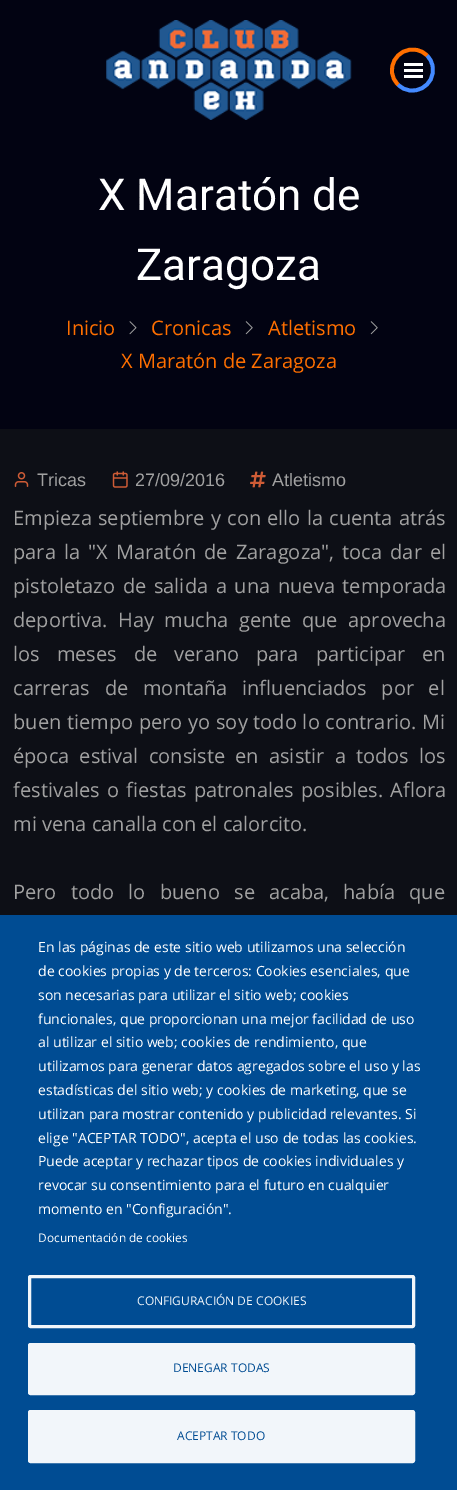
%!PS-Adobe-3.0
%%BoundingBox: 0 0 457 1490
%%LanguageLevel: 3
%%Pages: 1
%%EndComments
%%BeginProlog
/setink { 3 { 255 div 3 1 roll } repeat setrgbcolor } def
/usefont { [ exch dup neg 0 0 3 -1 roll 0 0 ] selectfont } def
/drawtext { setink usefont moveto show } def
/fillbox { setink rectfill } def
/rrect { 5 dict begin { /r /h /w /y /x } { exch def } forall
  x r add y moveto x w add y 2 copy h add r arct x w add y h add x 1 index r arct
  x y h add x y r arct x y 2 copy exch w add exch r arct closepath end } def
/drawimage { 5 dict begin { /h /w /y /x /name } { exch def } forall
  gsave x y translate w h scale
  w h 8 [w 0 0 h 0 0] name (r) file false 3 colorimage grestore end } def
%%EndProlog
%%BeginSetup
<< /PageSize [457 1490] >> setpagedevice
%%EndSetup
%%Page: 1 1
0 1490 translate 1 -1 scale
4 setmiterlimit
0 0 457 1490 13 15 22 fillbox
0 0 457 429 2 3 18 fillbox
(assets/img1.rgb) 106 20 246 100 drawimage
68 138 255 setink
3.8 setlinewidth
427 55.5 moveto 430 58.5 432 62 432.5 66 curveto 436.5 86 412 99 398 84.5 curveto stroke
255 111 0 setink
398 84.5 moveto 383.5 70.5 396.5 46 416.5 50 curveto 420.5 50.5 424 52.5 427 55.5 curveto stroke
404 63 19 3 255 255 255 fillbox
404 69 19 3 255 255 255 fillbox
404 75 19 3 255 255 255 fillbox
(X Maratón de) 98 210 /Roboto-Regular 44 255 255 255 drawtext
(Zaragoza) 136 280 /Roboto-Regular 44 255 255 255 drawtext
(Inicio) 66 335 /OpenSans-Regular 20 255 111 0 drawtext
(assets/img2.rgb) 129 321 8 14 drawimage
(Cronicas) 151 335 /OpenSans-Regular 20 255 111 0 drawtext
(assets/img3.rgb) 245 321 8 14 drawimage
(Atletismo) 268 335 /OpenSans-Regular 20 255 111 0 drawtext
(assets/img3.rgb) 370 321 8 14 drawimage
(X Maratón de Zaragoza) 121 368 /OpenSans-Regular 20 255 111 0 drawtext
(assets/img4.rgb) 14 472 15 15 drawimage
(Tricas) 37 486 /LiberationSans-Regular 18 161 161 161 drawtext
(assets/img5.rgb) 112 471 16 17 drawimage
(27/09/2016) 135 486 /LiberationSans-Regular 18 161 161 161 drawtext
(assets/img6.rgb) 250 471 16 17 drawimage
(Atletismo) 272 486 /LiberationSans-Regular 18 161 161 161 drawtext
/OpenSans-Regular 20 usefont
13 525 moveto 1 0 32 (Empieza septiembre y con ello la cuenta atrás) widthshow
13 559 moveto 3 0 32 (para la "X Maratón de Zaragoza", toca dar el) widthshow
13 593 moveto 2.5 0 32 (pistoletazo de salida a una nueva temporada) widthshow
13 627 moveto 5.25 0 32 (deportiva. Hay mucha gente que aprovecha) widthshow
13 661 moveto 11.75 0 32 (los meses de verano para participar en) widthshow
13 695 moveto 9.5 0 32 (carreras de montaña influenciados por el) widthshow
13 729 moveto 0.5 0 32 (buen tiempo pero yo soy todo lo contrario. Mi) widthshow
13 763 moveto 5 0 32 (época estival consiste en asistir a todos los) widthshow
13 797 moveto 2 0 32 (festivales o fiestas patronales posibles. Aflora) widthshow
(mi vena canalla con el calorcito.) 13 831 /OpenSans-Regular 20 161 161 161 drawtext
13 899 moveto 9 0 32 (Pero todo lo bueno se acaba, había que) widthshow
0 915 457 575 0 76 147 fillbox
(En las páginas de este sitio web utilizamos una selección) 38 952 /OpenSans-Regular 14 255 255 255 drawtext
(de cookies propias y de terceros: Cookies esenciales, que) 38 976 /OpenSans-Regular 14 255 255 255 drawtext
(son necesarias para utilizar el sitio web; cookies) 38 1000 /OpenSans-Regular 14 255 255 255 drawtext
(funcionales, que proporcionan una mejor facilidad de uso) 38 1024 /OpenSans-Regular 14 255 255 255 drawtext
(al utilizar el sitio web; cookies de rendimiento, que) 38 1047 /OpenSans-Regular 14 255 255 255 drawtext
(utilizamos para generar datos agregados sobre el uso y las) 38 1071 /OpenSans-Regular 14 255 255 255 drawtext
(estadísticas del sitio web; y cookies de marketing, que se) 38 1095 /OpenSans-Regular 14 255 255 255 drawtext
(utilizan para mostrar contenido y publicidad relevantes. Si) 38 1119 /OpenSans-Regular 14 255 255 255 drawtext
(elige "ACEPTAR TODO", acepta el uso de todas las cookies.) 38 1143 /OpenSans-Regular 14 255 255 255 drawtext
(Puede aceptar y rechazar tipos de cookies individuales y) 38 1166 /OpenSans-Regular 14 255 255 255 drawtext
(revocar su consentimiento para el futuro en cualquier) 38 1190 /OpenSans-Regular 14 255 255 255 drawtext
(momento en "Configuración".) 38 1214 /OpenSans-Regular 14 255 255 255 drawtext
(Documentación de cookies) 38 1242 /OpenSans-Regular 11.9 255 255 255 drawtext
242 246 250 setink
3 setlinewidth
29.5 1276.5 384 50 1 rrect stroke
(CONFIGURACIÓN DE COOKIES) 137 1305 /OpenSans-Regular 12 242 246 250 drawtext
29.5 1344.5 384 49 1 rrect gsave fill grestore
stroke
(DENEGAR TODAS) 173 1372 /OpenSans-Regular 12 0 76 147 drawtext
242 246 250 setink
29.5 1411.5 384 50 1 rrect gsave fill grestore
stroke
(ACEPTAR TODO) 177 1440 /OpenSans-Regular 12 0 76 147 drawtext
showpage
%%EOF
